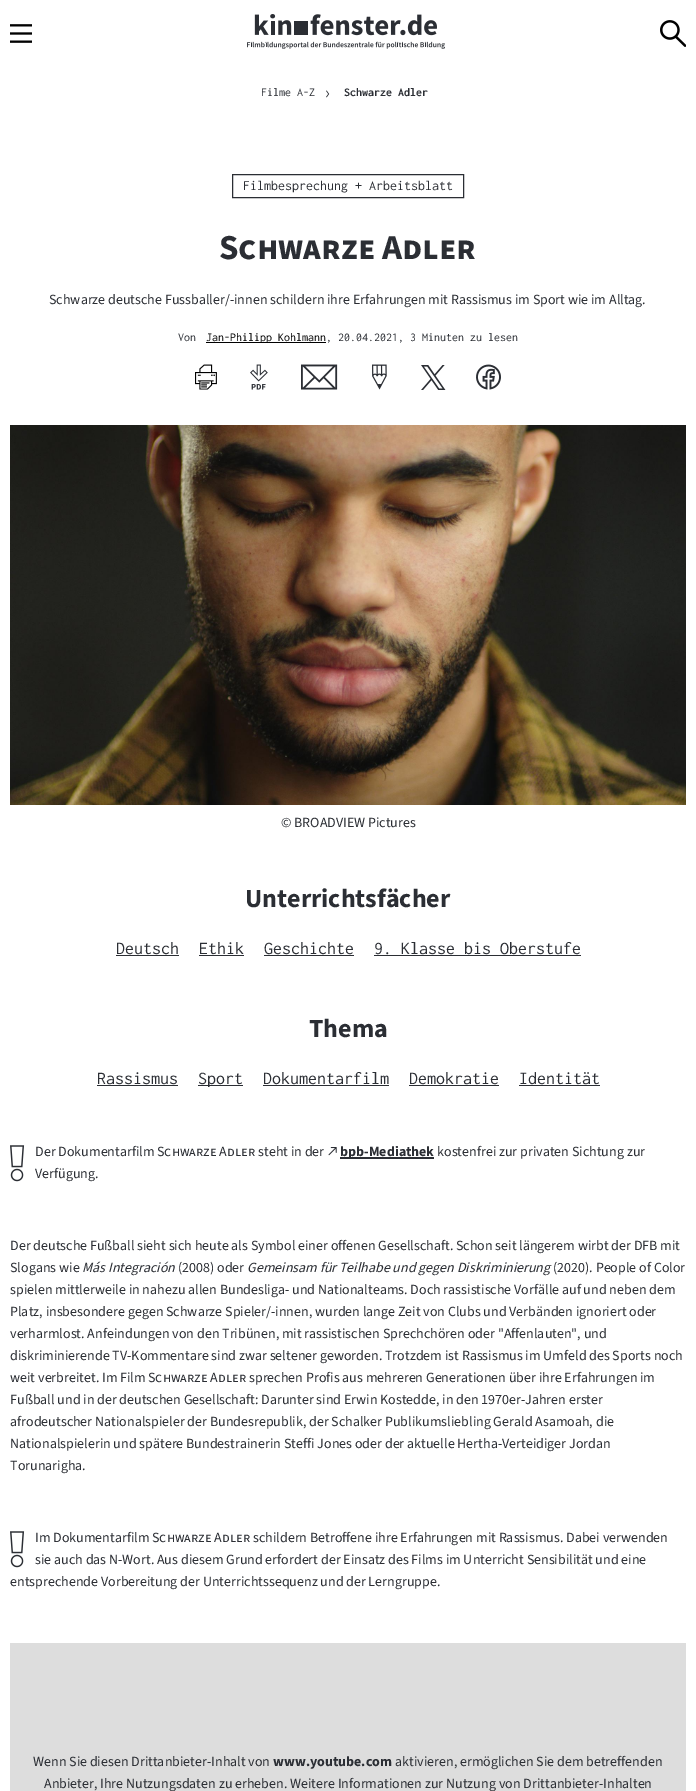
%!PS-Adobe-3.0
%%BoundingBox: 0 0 696 1791
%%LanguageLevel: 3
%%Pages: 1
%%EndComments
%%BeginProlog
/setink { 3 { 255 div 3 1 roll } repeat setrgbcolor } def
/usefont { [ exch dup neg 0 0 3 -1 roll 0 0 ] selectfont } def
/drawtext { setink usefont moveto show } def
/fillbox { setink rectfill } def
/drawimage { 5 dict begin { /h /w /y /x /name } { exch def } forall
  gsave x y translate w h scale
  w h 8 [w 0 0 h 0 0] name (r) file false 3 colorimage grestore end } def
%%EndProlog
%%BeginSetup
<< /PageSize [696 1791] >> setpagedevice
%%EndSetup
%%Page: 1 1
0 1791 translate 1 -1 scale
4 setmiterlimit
0 0 696 1791 255 255 255 fillbox
(assets/img1.rgb) 10 24 22 19 drawimage
(assets/img2.rgb) 247 14 198 35 drawimage
(assets/img3.rgb) 660 20 26 27 drawimage
(Filme A-Z) 261 96 /Inconsolata-Regular 12 43 46 52 drawtext
(assets/img4.rgb) 326 90 4 8 drawimage
(Schwarze Adler) 344 96 /Inconsolata-Bold 12 43 46 52 drawtext
232.5 174.5 231 23 rectstroke
(Filmbesprechung + Arbeitsblatt) 243 190 /Inconsolata-Regular 14 43 46 52 drawtext
(Schwarze Adler) 219 259 /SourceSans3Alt-Bold 35 43 46 52 drawtext
(Schwarze deutsche Fussballer/-innen schildern ihre Erfahrungen mit Rassismus im Sport wie im Alltag.) 49 304 /SourceSans3-Regular 14 43 46 52 drawtext
(Von) 178 341 /Inconsolata-Regular 12 43 46 52 drawtext
206 342 120 1 0 0 0 fillbox
(Jan-Philipp Kohlmann) 206 341 /Inconsolata-Regular 12 0 0 0 drawtext
(, 20.04.2021, 3 Minuten zu lesen) 326 341 /Inconsolata-Regular 12 43 46 52 drawtext
(assets/img5.rgb) 195 364 22 26 drawimage
(assets/img6.rgb) 250 364 18 26 drawimage
(assets/img7.rgb) 301 364 37 26 drawimage
(assets/img8.rgb) 372 364 15 26 drawimage
(assets/img9.rgb) 421 365 25 25 drawimage
(assets/img10.rgb) 476 364 25 26 drawimage
(assets/img11.rgb) 10 425 676 380 drawimage
(© BROADVIEW Pictures) 281 827 /SourceSans3-Regular 14 43 46 52 drawtext
(Unterrichtsfächer) 245 907 /SourceSans3-Bold 26 43 46 52 drawtext
(Deutsch) 116 954 /Inconsolata-Regular 18 43 46 52 drawtext
116 955 63 1 43 46 52 fillbox
(Ethik) 199 954 /Inconsolata-Regular 18 43 46 52 drawtext
199 955 45 1 43 46 52 fillbox
(Geschichte) 264 954 /Inconsolata-Regular 18 43 46 52 drawtext
264 955 90 1 43 46 52 fillbox
(9. Klasse bis Oberstufe) 374 954 /Inconsolata-Regular 18 43 46 52 drawtext
374 955 207 1 43 46 52 fillbox
(Thema) 309 1037 /SourceSans3-Bold 26 43 46 52 drawtext
(Rassismus) 97 1084 /Inconsolata-Regular 18 43 46 52 drawtext
97 1085 81 1 43 46 52 fillbox
198 1085 45 1 43 46 52 fillbox
(Sport) 198 1084 /Inconsolata-Regular 18 43 46 52 drawtext
(Dokumentarfilm) 263 1084 /Inconsolata-Regular 18 43 46 52 drawtext
263 1085 126 1 43 46 52 fillbox
(Demokratie) 409 1084 /Inconsolata-Regular 18 43 46 52 drawtext
409 1085 90 1 43 46 52 fillbox
(Identität) 519 1084 /Inconsolata-Regular 18 43 46 52 drawtext
519 1085 81 1 43 46 52 fillbox
(assets/img12.rgb) 10 1145 15 37 drawimage
(Der Dokumentarfilm) 35 1156 /SourceSans3-Regular 14 43 46 52 drawtext
(Schwarze Adler) 157 1156 /SourceSans3Alt-Regular 14 43 46 52 drawtext
(steht in der) 258 1156 /SourceSans3-Regular 14 43 46 52 drawtext
(assets/img13.rgb) 328 1147 9 9 drawimage
340 1157 94 2 43 46 52 fillbox
(bpb-Mediathek) 340 1156 /SourceSans3-Bold 14 43 46 52 drawtext
(kostenfrei zur privaten Sichtung zur) 437 1156 /SourceSans3-Regular 14 43 46 52 drawtext
(Verfügung.) 35 1178 /SourceSans3-Regular 14 43 46 52 drawtext
(Der deutsche Fußball sieht sich heute als Symbol einer offenen Gesellschaft. Schon seit längerem wirbt der DFB mit) 10 1250 /SourceSans3-Regular 14 43 46 52 drawtext
(Slogans wie) 10 1272 /SourceSans3-Regular 14 43 46 52 drawtext
(Más Integración) 82 1272 /SourceSans3-Italic 14 43 46 52 drawtext
(\(2008\) oder) 178 1272 /SourceSans3-Regular 14 43 46 52 drawtext
(Gemeinsam für Teilhabe und gegen Diskriminierung) 247 1272 /SourceSans3-Italic 14 43 46 52 drawtext
(\(2020\). People of Color) 553 1272 /SourceSans3-Regular 14 43 46 52 drawtext
(spielen mittlerweile in nahezu allen Bundesliga- und Nationalteams. Doch rassistische Vorfälle auf und neben dem) 10 1294 /SourceSans3-Regular 14 43 46 52 drawtext
(Platz, insbesondere gegen Schwarze Spieler/-innen, wurden lange Zeit von Clubs und Verbänden ignoriert oder) 10 1316 /SourceSans3-Regular 14 43 46 52 drawtext
(verharmlost. Anfeindungen von den Tribünen, mit rassistischen Sprechchören oder "Affenlauten", und) 10 1338 /SourceSans3-Regular 14 43 46 52 drawtext
(diskriminierende TV-Kommentare sind zwar seltener geworden. Trotzdem ist Rassismus im Umfeld des Sports noch) 10 1360 /SourceSans3-Regular 14 43 46 52 drawtext
(weit verbreitet. Im Film) 10 1382 /SourceSans3-Regular 14 43 46 52 drawtext
(Schwarze Adler) 148 1382 /SourceSans3Alt-Regular 14 43 46 52 drawtext
(sprechen Profis aus mehreren Generationen über ihre Erfahrungen im) 249 1382 /SourceSans3-Regular 14 43 46 52 drawtext
(Fußball und in der deutschen Gesellschaft: Darunter sind Erwin Kostedde, in den 1970er-Jahren erster) 10 1404 /SourceSans3-Regular 14 43 46 52 drawtext
(afrodeutscher Nationalspieler der Bundesrepublik, der Schalker Publikumsliebling Gerald Asamoah, die) 10 1426 /SourceSans3-Regular 14 43 46 52 drawtext
(Nationalspielerin und spätere Bundestrainerin Steffi Jones oder der aktuelle Hertha-Verteidiger Jordan) 10 1448 /SourceSans3-Regular 14 43 46 52 drawtext
(Torunarigha.) 10 1470 /SourceSans3-Regular 14 43 46 52 drawtext
(assets/img12.rgb) 10 1531 15 37 drawimage
(Im Dokumentarfilm) 35 1542 /SourceSans3-Regular 14 43 46 52 drawtext
(Schwarze Adler) 152 1542 /SourceSans3Alt-Regular 14 43 46 52 drawtext
(schildern Betroffene ihre Erfahrungen mit Rassismus. Dabei verwenden) 253 1542 /SourceSans3-Regular 14 43 46 52 drawtext
(sie auch das N-Wort. Aus diesem Grund erfordert der Einsatz des Films im Unterricht Sensibilität und eine) 35 1564 /SourceSans3-Regular 14 43 46 52 drawtext
(entsprechende Vorbereitung der Unterrichtssequenz und der Lerngruppe.) 10 1586 /SourceSans3-Regular 14 43 46 52 drawtext
10 1643 676 148 221 221 221 fillbox
(Wenn Sie diesen Drittanbieter-Inhalt von) 33 1766 /SourceSans3-Regular 14 43 46 52 drawtext
(www.youtube.com) 273 1766 /SourceSans3-Bold 14 43 46 52 drawtext
(aktivieren, ermöglichen Sie dem betreffenden) 395 1766 /SourceSans3-Regular 14 43 46 52 drawtext
(Anbieter, Ihre Nutzungsdaten zu erheben. Weitere Informationen zur Nutzung von Drittanbieter-Inhalten) 44 1788 /SourceSans3-Regular 14 43 46 52 drawtext
showpage
%%EOF
